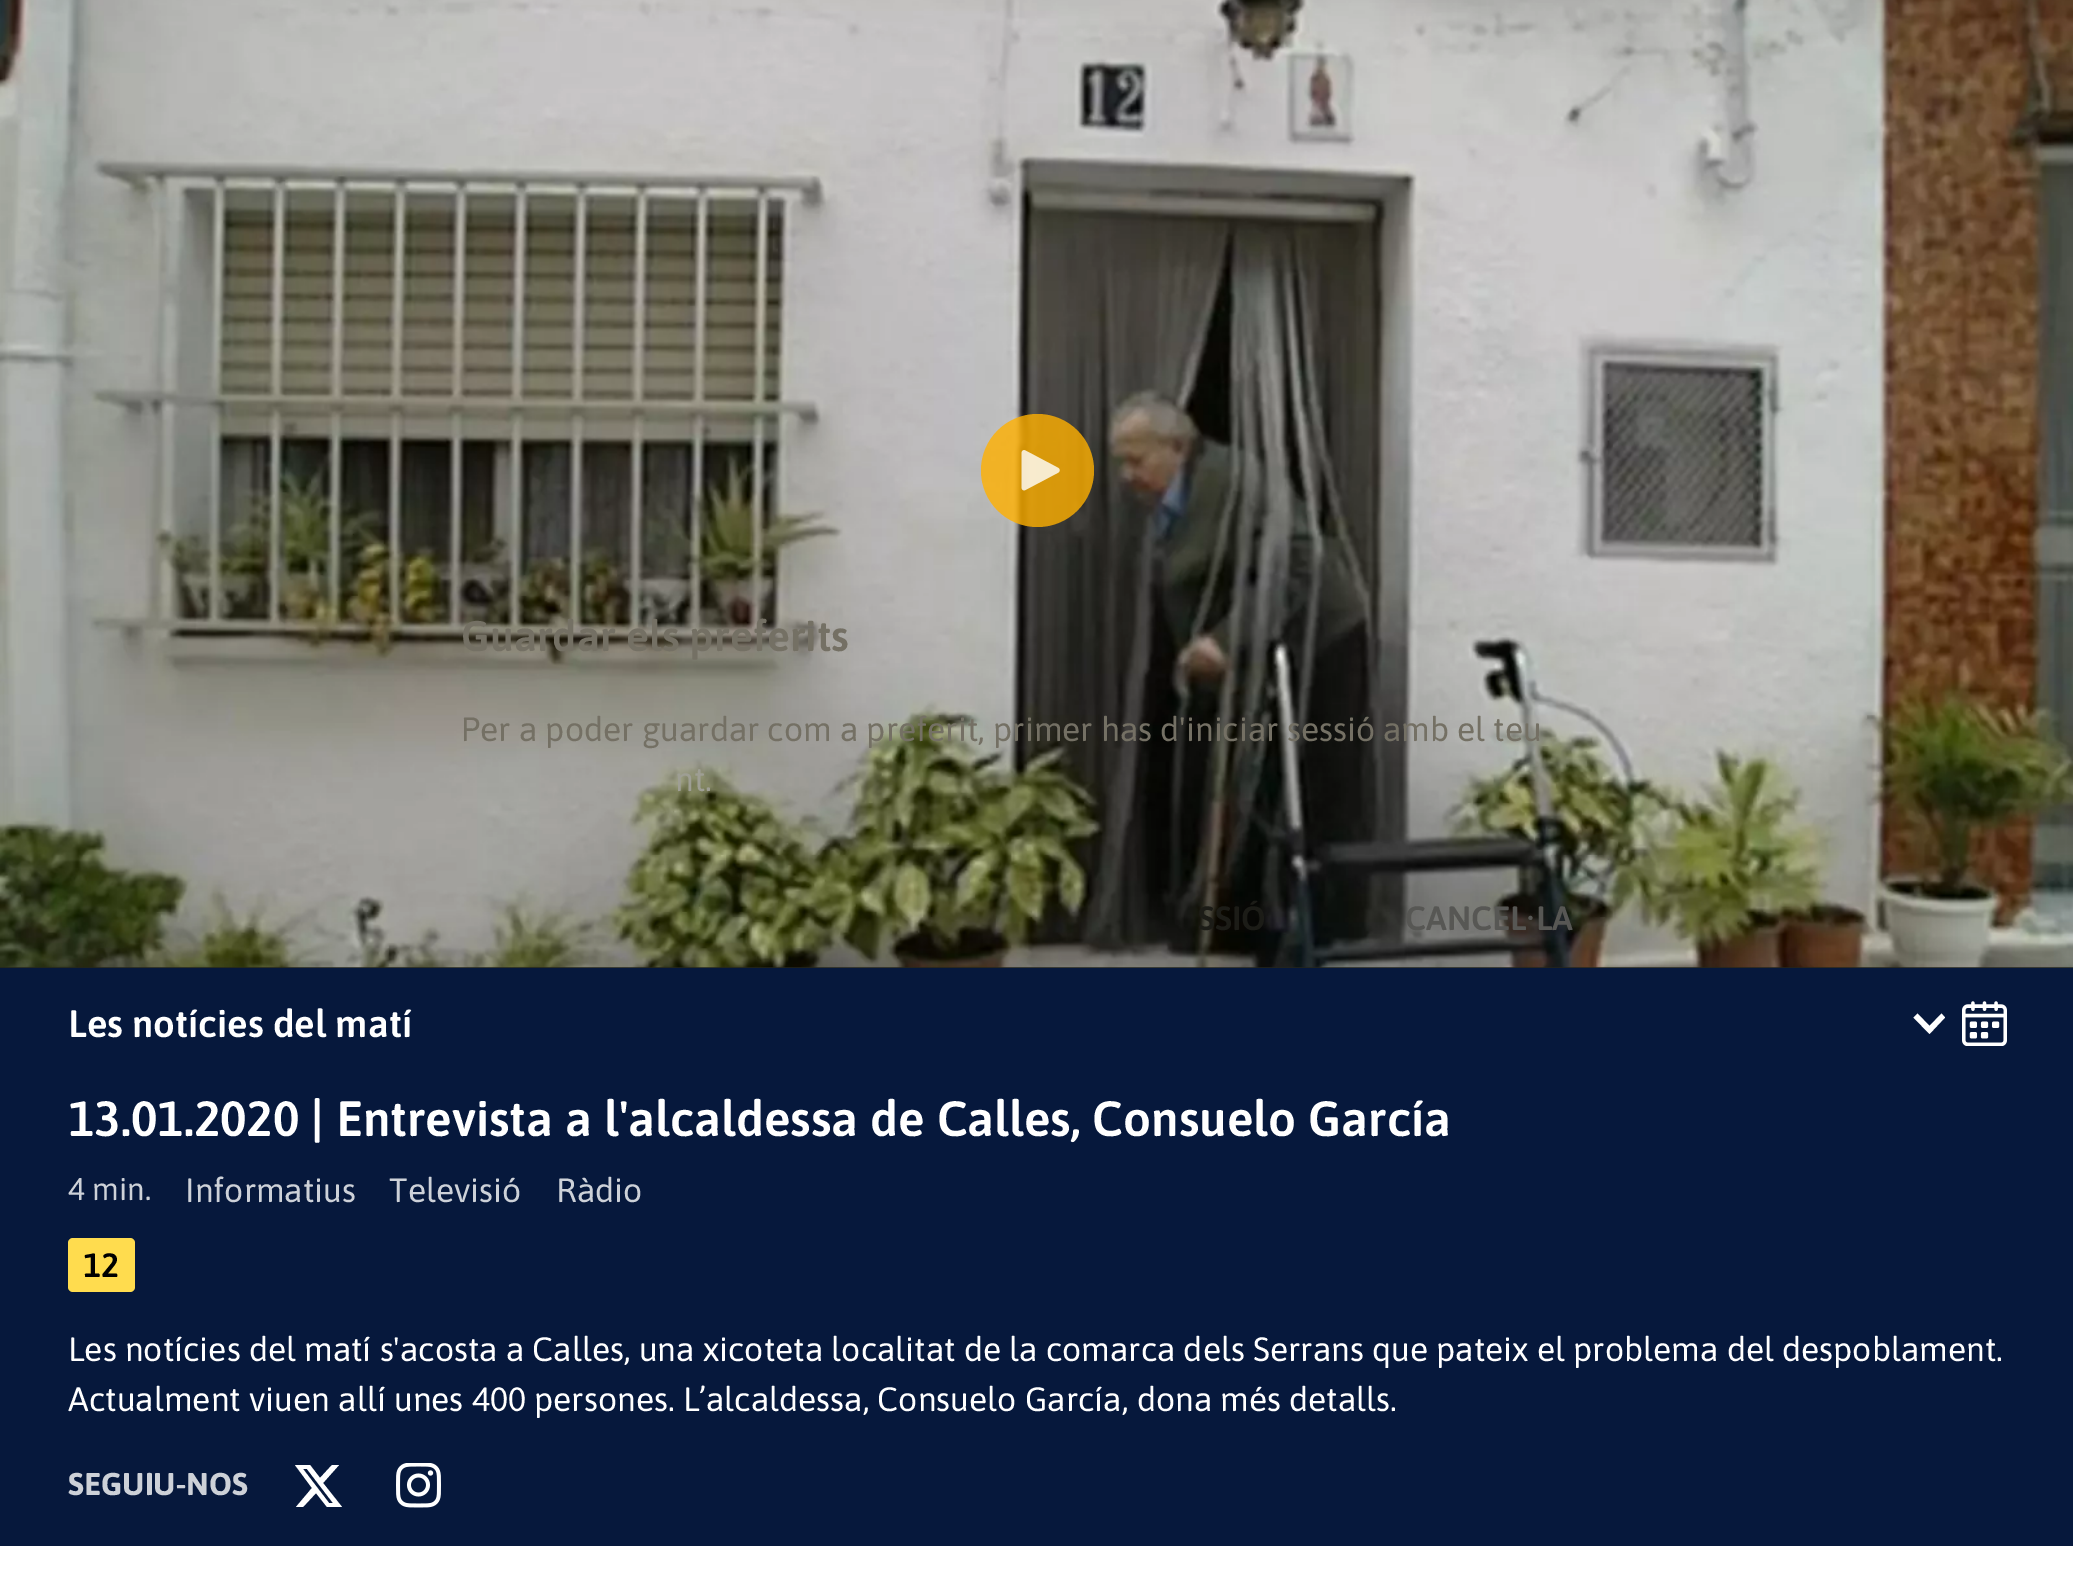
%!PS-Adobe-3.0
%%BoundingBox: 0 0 2073 1594
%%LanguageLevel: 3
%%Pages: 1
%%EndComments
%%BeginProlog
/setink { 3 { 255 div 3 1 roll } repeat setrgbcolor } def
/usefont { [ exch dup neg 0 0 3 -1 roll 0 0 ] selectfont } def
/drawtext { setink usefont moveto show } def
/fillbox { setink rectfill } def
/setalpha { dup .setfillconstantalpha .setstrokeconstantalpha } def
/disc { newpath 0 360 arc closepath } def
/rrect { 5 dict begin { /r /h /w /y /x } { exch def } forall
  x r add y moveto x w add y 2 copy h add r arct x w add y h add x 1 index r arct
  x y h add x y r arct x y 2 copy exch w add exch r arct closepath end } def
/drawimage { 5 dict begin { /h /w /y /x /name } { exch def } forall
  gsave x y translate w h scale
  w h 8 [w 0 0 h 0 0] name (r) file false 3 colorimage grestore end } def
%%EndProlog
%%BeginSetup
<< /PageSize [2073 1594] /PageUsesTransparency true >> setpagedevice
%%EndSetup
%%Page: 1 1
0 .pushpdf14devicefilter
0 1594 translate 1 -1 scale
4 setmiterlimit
0 0 2073 1594 255 255 255 fillbox
0 968 2073 578 6 24 60 fillbox
0 967 2073 1 35 37 31 fillbox
(assets/img1.rgb) 0 0 2073 968 drawimage
0.8 setalpha
255 176 0 setink
1037.5 470.5 56.5 disc fill
1 setalpha
(assets/img2.rgb) 1021 450 39 41 drawimage
(Guardar els preferits) 461 651 /Asap-SemiBold 42.75 116 112 100 drawtext
(Per a poder guardar com a preferit, primer has d'iniciar sessió amb el teu) 461 741 /Asap-Regular 33.75 116 112 100 drawtext
(nt.) 675 791 /Asap-Regular 33.75 158 158 148 drawtext
(SSIÓ) 1198 930 /Asap-SemiBold 33.75 28 28 23 drawtext
(CANCEL·LA) 1405 930 /Asap-SemiBold 33.75 87 87 84 drawtext
(Les notícies del matí) 68 1037 /Asap-SemiBold 38.25 255 255 255 drawtext
1941.5 1013.5 moveto 1929.5 1026 lineto 1917.5 1013.5 lineto 1913.5 1017.5 lineto 1929.5 1034 lineto 1945 1017.5 lineto closepath fill
(assets/img3.rgb) 1962 1001 45 45 drawimage
(13.01.2020 | Entrevista a l'alcaldessa de Calles, Consuelo García) 68 1136 /Asap-SemiBold 49.5 255 255 255 drawtext
(4 min.) 68 1200 /Asap-Regular 31.5 205 209 216 drawtext
(Informatius) 185 1202 /Asap-Regular 33.75 205 209 216 drawtext
(Televisió) 389 1202 /Asap-Regular 33.75 205 209 216 drawtext
(Ràdio) 556 1202 /Asap-Regular 33.75 205 209 216 drawtext
255 220 78 setink
68 1238 67 54 5 rrect fill
(12) 83 1277 /Asap-SemiBold 33.75 0 0 0 drawtext
(Les notícies del matí s'acosta a Calles, una xicoteta localitat de la comarca dels Serrans que pateix el problema del despoblament.) 68 1361 /Asap-Regular 33.75 255 255 255 drawtext
(Actualment viuen allí unes 400 persones. L’alcaldessa, Consuelo García, dona més detalls.) 68 1411 /Asap-Regular 33.75 255 255 255 drawtext
(SEGUIU-NOS) 68 1495 /Asap-Bold 31.5 205 209 216 drawtext
255 255 255 setink
332 1465 moveto 339 1465 lineto 323 1483 lineto 342 1507 lineto 327 1507 lineto 316 1493 lineto 303 1507 lineto 296 1507 lineto 312 1488 lineto 295 1465 lineto 310 1465 lineto 320 1478 lineto closepath 329 1503 moveto 333 1503 lineto 307 1469 lineto 303 1469 lineto closepath eofill
(assets/img4.rgb) 396 1463 45 45 drawimage
.poppdf14devicefilter showpage
%%EOF
